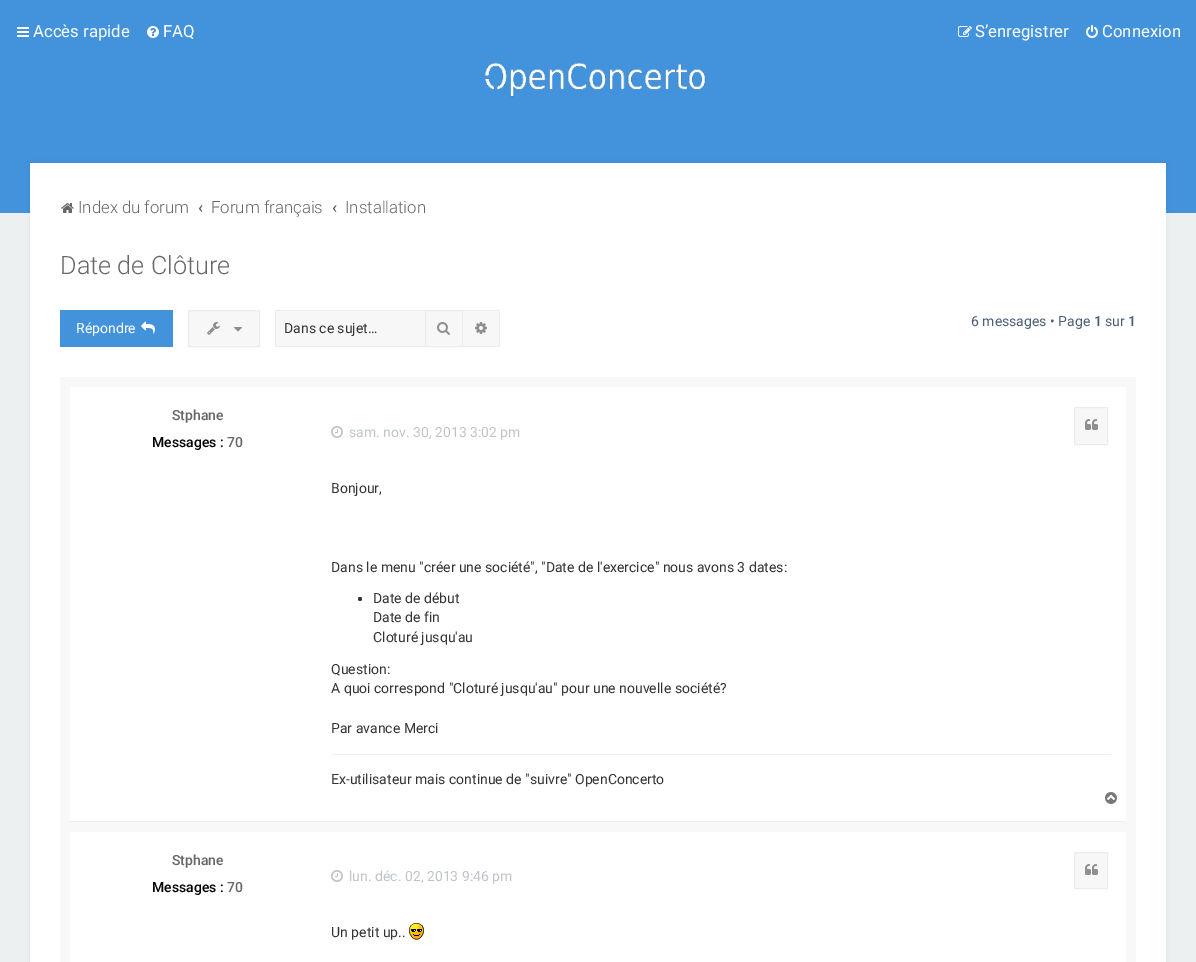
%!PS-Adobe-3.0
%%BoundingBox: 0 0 1196 962
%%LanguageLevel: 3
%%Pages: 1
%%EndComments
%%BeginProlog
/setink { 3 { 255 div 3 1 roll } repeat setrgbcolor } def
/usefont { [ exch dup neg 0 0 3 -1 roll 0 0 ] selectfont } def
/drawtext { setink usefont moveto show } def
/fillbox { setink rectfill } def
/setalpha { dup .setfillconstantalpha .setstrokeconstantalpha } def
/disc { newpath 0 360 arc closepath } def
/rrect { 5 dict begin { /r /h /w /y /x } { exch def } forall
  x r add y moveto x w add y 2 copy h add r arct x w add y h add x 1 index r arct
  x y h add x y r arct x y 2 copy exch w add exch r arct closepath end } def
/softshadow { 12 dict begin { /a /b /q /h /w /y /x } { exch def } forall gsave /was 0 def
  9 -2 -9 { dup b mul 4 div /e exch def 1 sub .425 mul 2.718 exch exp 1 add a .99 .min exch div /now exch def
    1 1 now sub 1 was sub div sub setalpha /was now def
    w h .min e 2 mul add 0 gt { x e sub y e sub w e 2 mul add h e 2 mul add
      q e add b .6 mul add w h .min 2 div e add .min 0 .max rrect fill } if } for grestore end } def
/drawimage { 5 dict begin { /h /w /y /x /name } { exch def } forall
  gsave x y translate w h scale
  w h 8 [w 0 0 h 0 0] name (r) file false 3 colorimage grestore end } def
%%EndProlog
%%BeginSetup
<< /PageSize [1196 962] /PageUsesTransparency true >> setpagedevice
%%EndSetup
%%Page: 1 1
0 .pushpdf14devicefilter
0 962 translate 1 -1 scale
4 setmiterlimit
0 0 1196 962 236 240 241 fillbox
0 0 1196 213 66 147 220 fillbox
(assets/img1.rgb) 485 62 221 35 drawimage
(assets/img2.rgb) 17 27 12 10 drawimage
(Accès rapide) 33 37 /Roboto-Regular 16.75 255 255 255 drawtext
(assets/img3.rgb) 147 26 12 12 drawimage
(FAQ) 163 37 /Roboto-Regular 16.75 255 255 255 drawtext
(assets/img4.rgb) 958 26 14 11 drawimage
(S’enregistrer) 975 37 /Roboto-Regular 16.75 255 255 255 drawtext
(assets/img5.rgb) 1086 25 12 13 drawimage
(Connexion) 1102 37 /Roboto-Regular 16.75 255 255 255 drawtext
0 0 0 setink
30 163 1136 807 0 2.5 0.05 softshadow
30 163 1136 799 255 255 255 fillbox
(assets/img6.rgb) 61 203 13 10 drawimage
(Index du forum) 78 213 /Roboto-Light 16.75 103 103 103 drawtext
(‹) 198 213 /Roboto-Medium 16.75 76 93 119 drawtext
(Forum français) 211 213 /Roboto-Light 16.75 103 103 103 drawtext
(‹) 332 213 /Roboto-Medium 16.75 76 93 119 drawtext
(Installation) 345 213 /Roboto-Light 16.75 103 103 103 drawtext
(Date de Clôture) 60 274 /Roboto-Light 25.25 103 103 103 drawtext
60 310 113 37 66 147 220 fillbox
(Répondre) 76 333 /Roboto-Regular 14 255 255 255 drawtext
(assets/img7.rgb) 141 321 14 13 drawimage
247 247 247 setink
188.5 310.5 moveto 259.5 310.5 lineto 259.5 346.5 lineto 188.5 346.5 lineto closepath gsave fill grestore
237 236 236 setink
stroke
(assets/img8.rgb) 207 322 13 13 drawimage
(assets/img9.rgb) 234 327 8 5 drawimage
276 311 149 35 247 247 247 fillbox
275 310 150 1 237 236 236 fillbox
275 346 150 1 237 236 236 fillbox
275 310 1 37 237 236 236 fillbox
(Dans ce sujet…) 284 333 /Roboto-Regular 14 51 51 51 drawtext
247 247 247 setink
425.5 310.5 moveto 462.5 310.5 lineto 462.5 346.5 lineto 425.5 346.5 lineto closepath gsave fill grestore
237 236 236 setink
stroke
(assets/img10.rgb) 437 322 13 13 drawimage
463 311 36 35 247 247 247 fillbox
463 310 37 1 237 236 236 fillbox
499 310 1 37 237 236 236 fillbox
463 346 37 1 237 236 236 fillbox
(assets/img11.rgb) 475 322 12 12 drawimage
(6 messages • Page) 971 326 /Roboto-Regular 14 76 93 119 drawtext
(1) 1094 326 /Roboto-Medium 14 76 93 119 drawtext
(sur) 1105 326 /Roboto-Regular 14 76 93 119 drawtext
(1) 1128 326 /Roboto-Medium 14 76 93 119 drawtext
60 377 1076 585 248 248 248 fillbox
70 387 1056 434 255 255 255 fillbox
70 821 1056 1 236 240 241 fillbox
(Stphane) 172 420 /Roboto-Medium 14 103 103 103 drawtext
(Messages :) 152 447 /Roboto-Medium 14 0 0 0 drawtext
(70) 227 447 /Roboto-Medium 14 103 103 103 drawtext
(assets/img12.rgb) 331 426 12 12 drawimage
(sam. nov. 30, 2013 3:02 pm) 349 437 /Roboto-Regular 14 190 196 201 drawtext
247 247 247 setink
1074.5 407.5 moveto 1107.5 407.5 lineto 1107.5 444.5 lineto 1074.5 444.5 lineto closepath gsave fill grestore
237 236 236 setink
stroke
(assets/img13.rgb) 1085 419 13 11 drawimage
(Bonjour,) 331 493 /Roboto-Regular 14 51 51 51 drawtext
(Dans le menu "créer une société", "Date de l'exercice" nous avons 3 dates:) 331 572 /Roboto-Regular 14 51 51 51 drawtext
360 599 2 disc fill
(Date de début) 373 603 /Roboto-Regular 14 51 51 51 drawtext
(Date de fin) 373 622 /Roboto-Regular 14 51 51 51 drawtext
(Cloturé jusqu'au) 373 642 /Roboto-Regular 14 51 51 51 drawtext
(Question:) 331 674 /Roboto-Regular 14 51 51 51 drawtext
(A quoi correspond "Cloturé jusqu'au" pour une nouvelle société?) 331 693 /Roboto-Regular 14 51 51 51 drawtext
(Par avance Merci) 331 733 /Roboto-Regular 14 51 51 51 drawtext
331 754 780 1 236 240 241 fillbox
(Ex-utilisateur mais continue de "suivre" OpenConcerto) 331 784 /Roboto-Regular 14 51 51 51 drawtext
(assets/img14.rgb) 1105 792 12 12 drawimage
70 832 1056 130 255 255 255 fillbox
(Stphane) 172 865 /Roboto-Medium 14 103 103 103 drawtext
(Messages :) 152 892 /Roboto-Medium 14 0 0 0 drawtext
(70) 227 892 /Roboto-Medium 14 103 103 103 drawtext
(assets/img12.rgb) 331 870 12 12 drawimage
(lun. déc. 02, 2013 9:46 pm) 349 881 /Roboto-Regular 14 190 196 201 drawtext
247 247 247 setink
1074.5 852.5 moveto 1107.5 852.5 lineto 1107.5 888.5 lineto 1074.5 888.5 lineto closepath gsave fill grestore
237 236 236 setink
stroke
(assets/img13.rgb) 1085 864 13 11 drawimage
(Un petit up..) 331 937 /Roboto-Regular 14 51 51 51 drawtext
(assets/img15.rgb) 409 923 15 17 drawimage
.poppdf14devicefilter showpage
%%EOF
